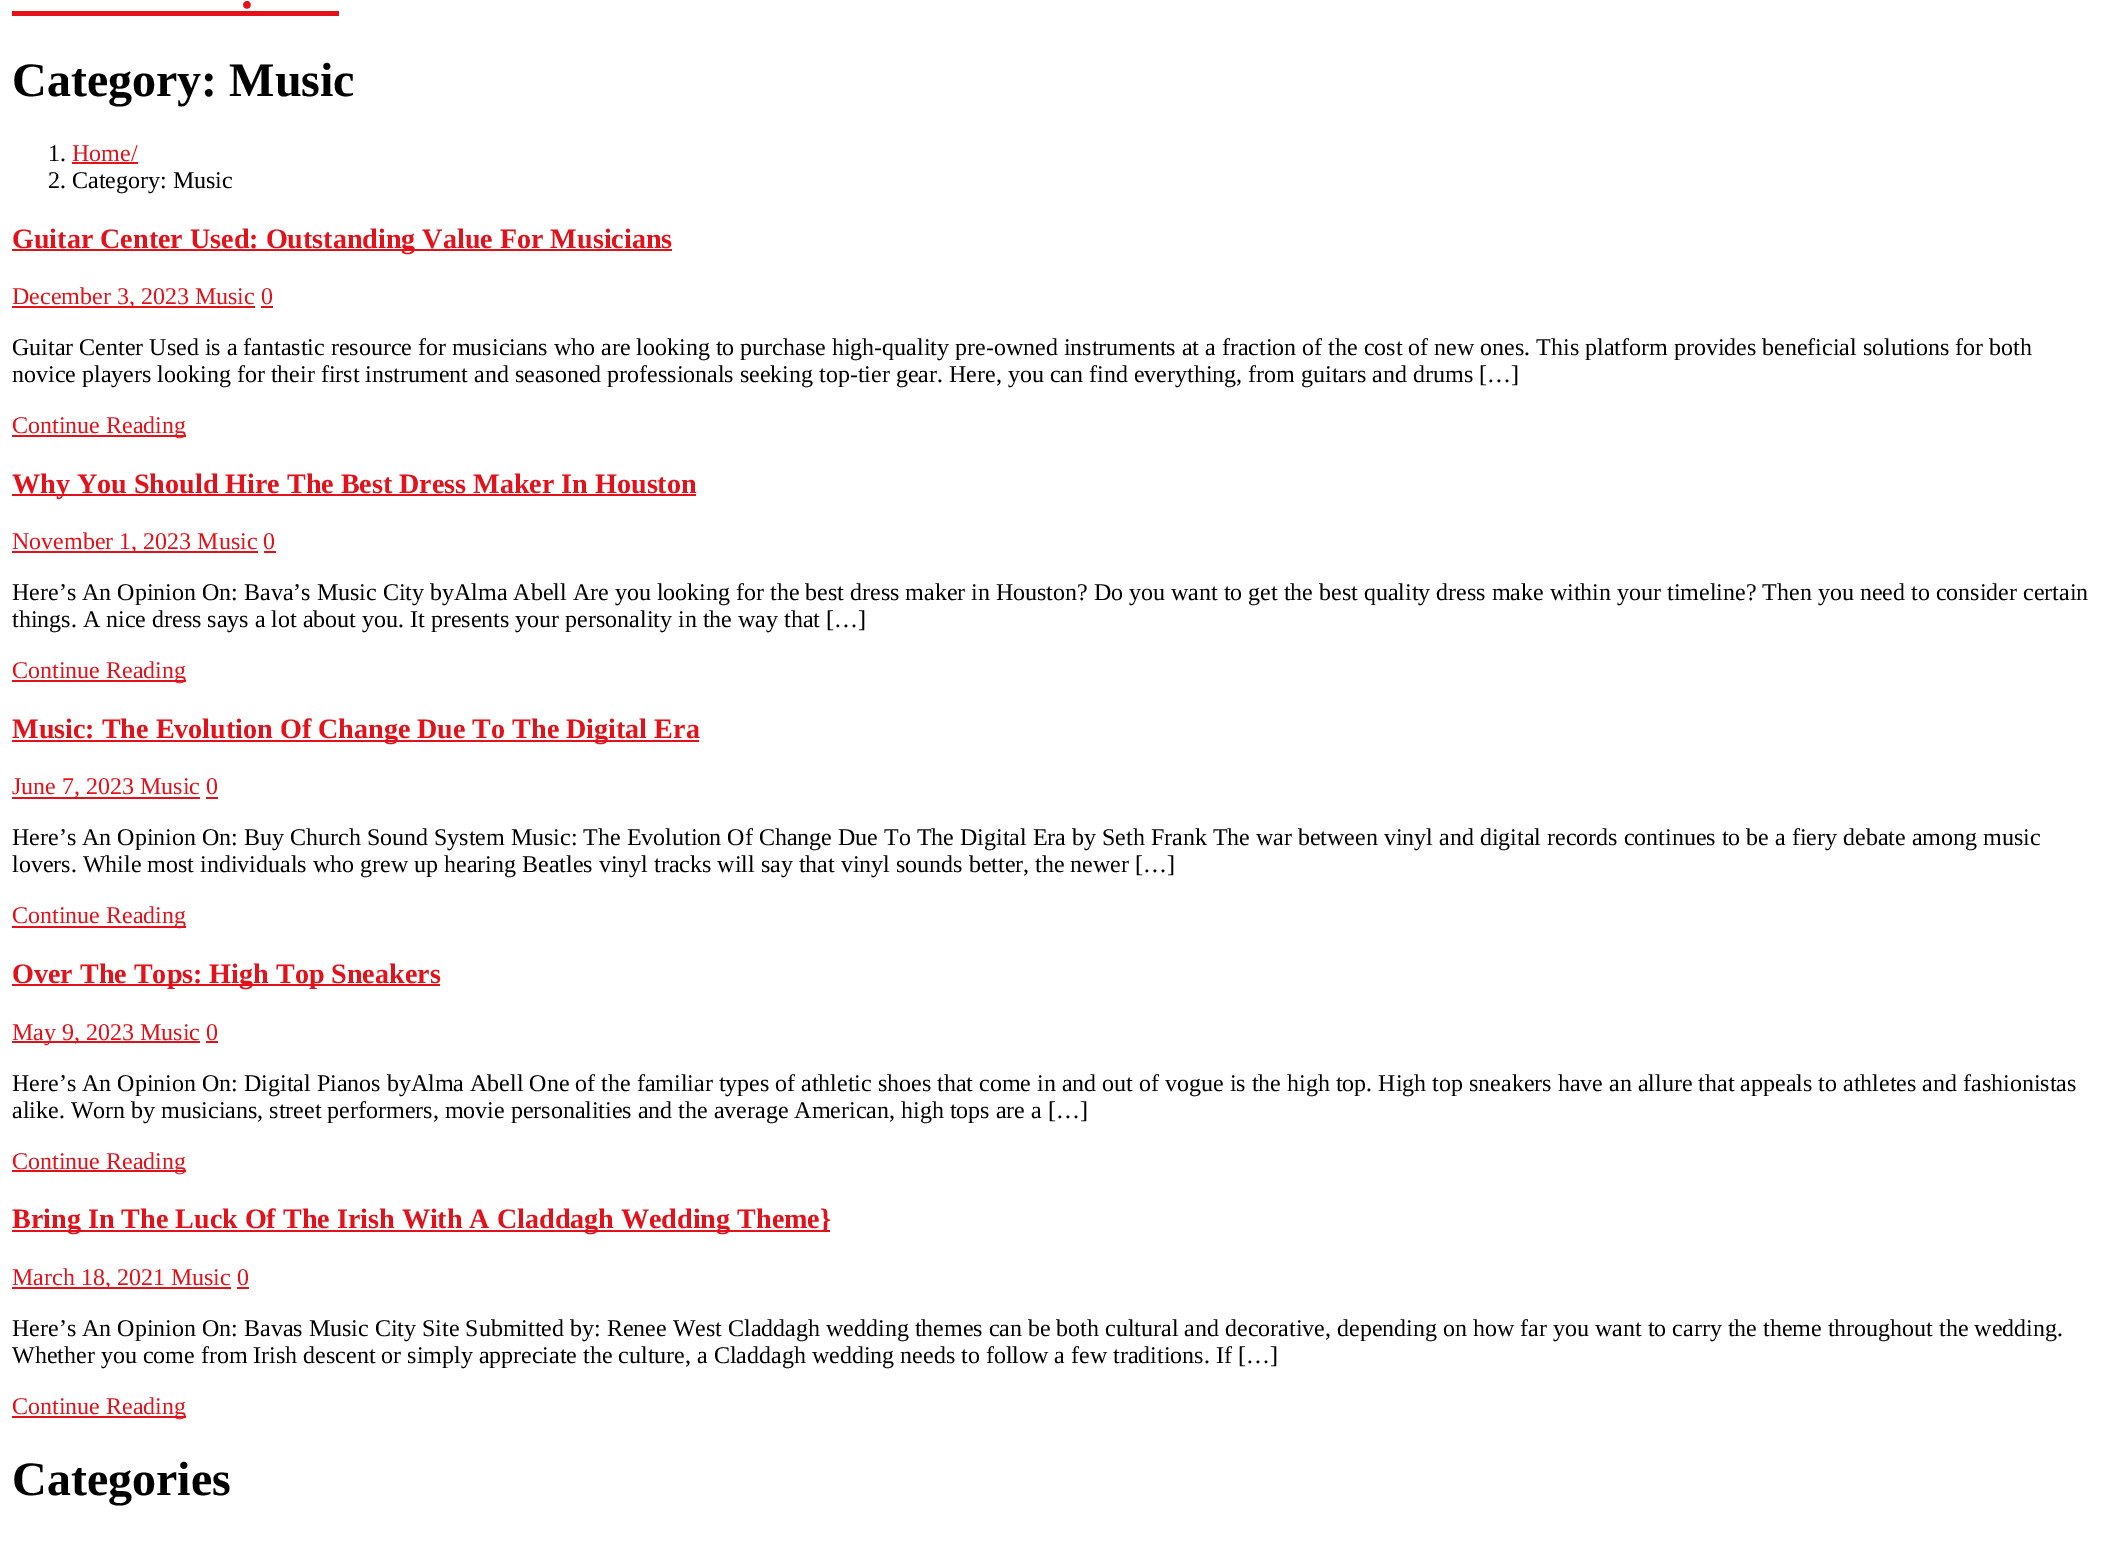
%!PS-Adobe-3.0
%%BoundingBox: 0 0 2105 1545
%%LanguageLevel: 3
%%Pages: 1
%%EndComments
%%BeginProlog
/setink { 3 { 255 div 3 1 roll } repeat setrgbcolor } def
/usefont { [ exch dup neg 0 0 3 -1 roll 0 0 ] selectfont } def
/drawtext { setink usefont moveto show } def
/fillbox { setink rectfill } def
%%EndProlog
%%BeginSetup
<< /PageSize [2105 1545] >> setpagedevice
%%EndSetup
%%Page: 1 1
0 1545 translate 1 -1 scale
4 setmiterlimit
0 0 2105 1545 255 255 255 fillbox
(.) 241 8 /LiberationSerif-Bold 48 227 17 26 drawtext
12 11 327 5 227 17 26 fillbox
(Category: Music) 12 96 /LiberationSerif-Bold 48 0 0 0 drawtext
(1.) 48 161 /LiberationSerif-Regular 24 0 0 0 drawtext
(Home/) 72 161 /LiberationSerif-Regular 24 227 17 26 drawtext
72 162 66 2 227 17 26 fillbox
(2. Category: Music) 48 188 /LiberationSerif-Regular 24 0 0 0 drawtext
12 249 660 2 227 17 26 fillbox
(Guitar Center Used: Outstanding Value For Musicians) 12 248 /LiberationSerif-Bold 28.1 227 17 26 drawtext
12 306 243 2 227 17 26 fillbox
(December 3, 2023 Music 0) 12 304 /LiberationSerif-Regular 24 227 17 26 drawtext
261 306 12 2 227 17 26 fillbox
(Guitar Center Used is a fantastic resource for musicians who are looking to purchase high-quality pre-owned instruments at a fraction of the cost of new ones. This platform provides beneficial solutions for both) 12 355 /LiberationSerif-Regular 24 0 0 0 drawtext
(novice players looking for their first instrument and seasoned professionals seeking top-tier gear. Here, you can find everything, from guitars and drums […]) 12 382 /LiberationSerif-Regular 24 0 0 0 drawtext
12 435 174 2 227 17 26 fillbox
(Continue Reading) 12 433 /LiberationSerif-Regular 24 227 17 26 drawtext
12 494 684 2 227 17 26 fillbox
(Why You Should Hire The Best Dress Maker In Houston) 12 493 /LiberationSerif-Bold 28.1 227 17 26 drawtext
12 551 246 2 227 17 26 fillbox
(November 1, 2023 Music 0) 12 549 /LiberationSerif-Regular 24 227 17 26 drawtext
264 551 12 2 227 17 26 fillbox
(Here’s An Opinion On: Bava’s Music City byAlma Abell Are you looking for the best dress maker in Houston? Do you want to get the best quality dress make within your timeline? Then you need to consider certain) 12 600 /LiberationSerif-Regular 24 0 0 0 drawtext
(things. A nice dress says a lot about you. It presents your personality in the way that […]) 12 627 /LiberationSerif-Regular 24 0 0 0 drawtext
12 680 174 2 227 17 26 fillbox
(Continue Reading) 12 678 /LiberationSerif-Regular 24 227 17 26 drawtext
12 740 687 2 227 17 26 fillbox
(Music: The Evolution Of Change Due To The Digital Era) 12 738 /LiberationSerif-Bold 28.1 227 17 26 drawtext
12 797 188 2 227 17 26 fillbox
(June 7, 2023 Music 0) 12 794 /LiberationSerif-Regular 24 227 17 26 drawtext
206 797 12 2 227 17 26 fillbox
(Here’s An Opinion On: Buy Church Sound System Music: The Evolution Of Change Due To The Digital Era by Seth Frank The war between vinyl and digital records continues to be a fiery debate among music) 12 845 /LiberationSerif-Regular 24 0 0 0 drawtext
(lovers. While most individuals who grew up hearing Beatles vinyl tracks will say that vinyl sounds better, the newer […]) 12 872 /LiberationSerif-Regular 24 0 0 0 drawtext
12 926 174 2 227 17 26 fillbox
(Continue Reading) 12 923 /LiberationSerif-Regular 24 227 17 26 drawtext
12 984 428 2 227 17 26 fillbox
(Over The Tops: High Top Sneakers) 12 983 /LiberationSerif-Bold 28.1 227 17 26 drawtext
12 1041 188 2 227 17 26 fillbox
(May 9, 2023 Music 0) 12 1040 /LiberationSerif-Regular 24 227 17 26 drawtext
206 1041 12 2 227 17 26 fillbox
(Here’s An Opinion On: Digital Pianos byAlma Abell One of the familiar types of athletic shoes that come in and out of vogue is the high top. High top sneakers have an allure that appeals to athletes and fashionistas) 12 1091 /LiberationSerif-Regular 24 0 0 0 drawtext
(alike. Worn by musicians, street performers, movie personalities and the average American, high tops are a […]) 12 1118 /LiberationSerif-Regular 24 0 0 0 drawtext
12 1170 174 2 227 17 26 fillbox
(Continue Reading) 12 1169 /LiberationSerif-Regular 24 227 17 26 drawtext
12 1230 818 2 227 17 26 fillbox
(Bring In The Luck Of The Irish With A Claddagh Wedding Theme}) 12 1228 /LiberationSerif-Bold 28.1 227 17 26 drawtext
12 1287 219 2 227 17 26 fillbox
(March 18, 2021 Music 0) 12 1285 /LiberationSerif-Regular 24 227 17 26 drawtext
237 1287 12 2 227 17 26 fillbox
(Here’s An Opinion On: Bavas Music City Site Submitted by: Renee West Claddagh wedding themes can be both cultural and decorative, depending on how far you want to carry the theme throughout the wedding.) 12 1336 /LiberationSerif-Regular 24 0 0 0 drawtext
(Whether you come from Irish descent or simply appreciate the culture, a Claddagh wedding needs to follow a few traditions. If […]) 12 1363 /LiberationSerif-Regular 24 0 0 0 drawtext
12 1416 174 2 227 17 26 fillbox
(Continue Reading) 12 1414 /LiberationSerif-Regular 24 227 17 26 drawtext
(Categories) 12 1495 /LiberationSerif-Bold 48 0 0 0 drawtext
showpage
%%EOF
